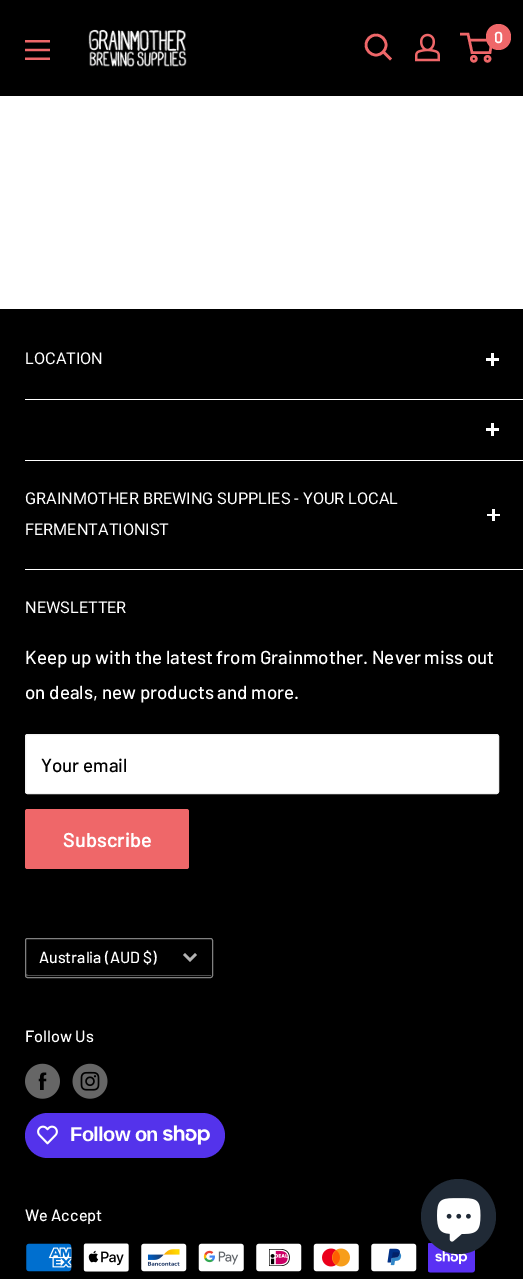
%!PS-Adobe-3.0
%%BoundingBox: 0 0 523 1279
%%LanguageLevel: 3
%%Pages: 1
%%EndComments
%%BeginProlog
/setink { 3 { 255 div 3 1 roll } repeat setrgbcolor } def
/usefont { [ exch dup neg 0 0 3 -1 roll 0 0 ] selectfont } def
/drawtext { setink usefont moveto show } def
/fillbox { setink rectfill } def
/disc { newpath 0 360 arc closepath } def
/rrect { 5 dict begin { /r /h /w /y /x } { exch def } forall
  x r add y moveto x w add y 2 copy h add r arct x w add y h add x 1 index r arct
  x y h add x y r arct x y 2 copy exch w add exch r arct closepath end } def
/drawimage { 5 dict begin { /h /w /y /x /name } { exch def } forall
  gsave x y translate w h scale
  w h 8 [w 0 0 h 0 0] name (r) file false 3 colorimage grestore end } def
%%EndProlog
%%BeginSetup
<< /PageSize [523 1279] >> setpagedevice
%%EndSetup
%%Page: 1 1
0 1279 translate 1 -1 scale
4 setmiterlimit
0 0 523 1279 255 255 255 fillbox
0 0 523 96 0 0 0 fillbox
(assets/img1.rgb) 88 29 99 38 drawimage
239 103 105 setink
2.6 setlinewidth
2 setlinecap
390 58.5 moveto 383.5 52 lineto stroke
0 setlinecap
376 45 10 disc stroke
(assets/img2.rgb) 415 33 25 29 drawimage
2.5 setlinewidth
473.8 58.8 2.5 disc stroke
487.5 58.8 2.5 disc stroke
469 40 moveto 492 40 lineto 490 52.5 lineto 472 52.5 lineto 468 34 lineto 460 34 lineto stroke
486 24 25 26 12.5 rrect fill
(0) 494 43 /Barlow-SemiBold 16 255 255 255 drawtext
(assets/img3.rgb) 25 40 25 20 drawimage
0 309 523 970 0 0 0 fillbox
25 399 498 1 255 255 255 fillbox
(LOCATION) 25 364 /Roboto-Regular 16.25 255 255 255 drawtext
491 353 3 13 255 255 255 fillbox
486 358 13 3 255 255 255 fillbox
25 460 498 1 255 255 255 fillbox
491 423 3 13 255 255 255 fillbox
486 428 13 3 255 255 255 fillbox
25 569 498 1 255 255 255 fillbox
(GRAINMOTHER BREWING SUPPLIES - YOUR LOCAL) 25 504 /Roboto-Regular 16.25 255 255 255 drawtext
(FERMENTATIONIST) 25 535 /Roboto-Regular 16.25 255 255 255 drawtext
492 509 3 12 255 255 255 fillbox
487 514 13 2 255 255 255 fillbox
(NEWSLETTER) 25 613 /Roboto-Regular 16.25 255 255 255 drawtext
(Keep up with the latest from Grainmother. Never miss out) 25 664 /Barlow-Medium 18.75 255 255 255 drawtext
(on deals, new products and more.) 25 699 /Barlow-Medium 18.75 255 255 255 drawtext
25.5 734.5 473 59 2 rrect gsave fill grestore
242 242 242 setink
1 setlinewidth
stroke
(Your email) 41 772 /Barlow-Medium 18.75 0 0 0 drawtext
239 103 105 setink
25 809 164 60 2.5 rrect fill
(Subscribe) 63 847 /Barlow-SemiBold 20 255 255 255 drawtext
77 77 77 setink
26 974 moveto 26 975 26 976 27 976 curveto 211 976 lineto 211 974 lineto 211 975 lineto 149 975 lineto 28 975 lineto closepath fill
128 128 128 setink
25.5 938.5 187 39 2 rrect stroke
(Australia \(AUD $\)) 39 963 /Barlow-Medium 16 255 255 255 drawtext
179 179 179 setink
2.5 setlinewidth
2 setlinecap
195 955 moveto 190 960 lineto 185 955 lineto stroke
(Follow Us) 25 1042 /Barlow-Medium 16.25 255 255 255 drawtext
(assets/img4.rgb) 25 1063 35 36 drawimage
(assets/img5.rgb) 72 1063 36 36 drawimage
84 51 235 setink
25 1113 200 45 22.5 rrect fill
(assets/img6.rgb) 37 1125 21 20 drawimage
/LiberationSans-Bold 20 usefont
255 255 255 setink
70 1141 moveto -0.6 0 (Follow on) ashow
(assets/img7.rgb) 163 1125 47 20 drawimage
(We Accept) 25 1221 /Barlow-Medium 16.25 255 255 255 drawtext
(assets/img8.rgb) 26 1243 46 29 drawimage
(assets/img9.rgb) 83 1243 46 29 drawimage
(assets/img10.rgb) 141 1243 46 29 drawimage
(assets/img11.rgb) 198 1243 46 29 drawimage
(assets/img12.rgb) 256 1243 46 29 drawimage
(assets/img13.rgb) 313 1243 46 29 drawimage
(assets/img14.rgb) 371 1243 46 29 drawimage
(assets/img15.rgb) 428 1243 47 30 drawimage
32 42 54 setink
458.5 1216.5 37.5 disc fill
(assets/img16.rgb) 437 1198 44 44 drawimage
showpage
%%EOF
